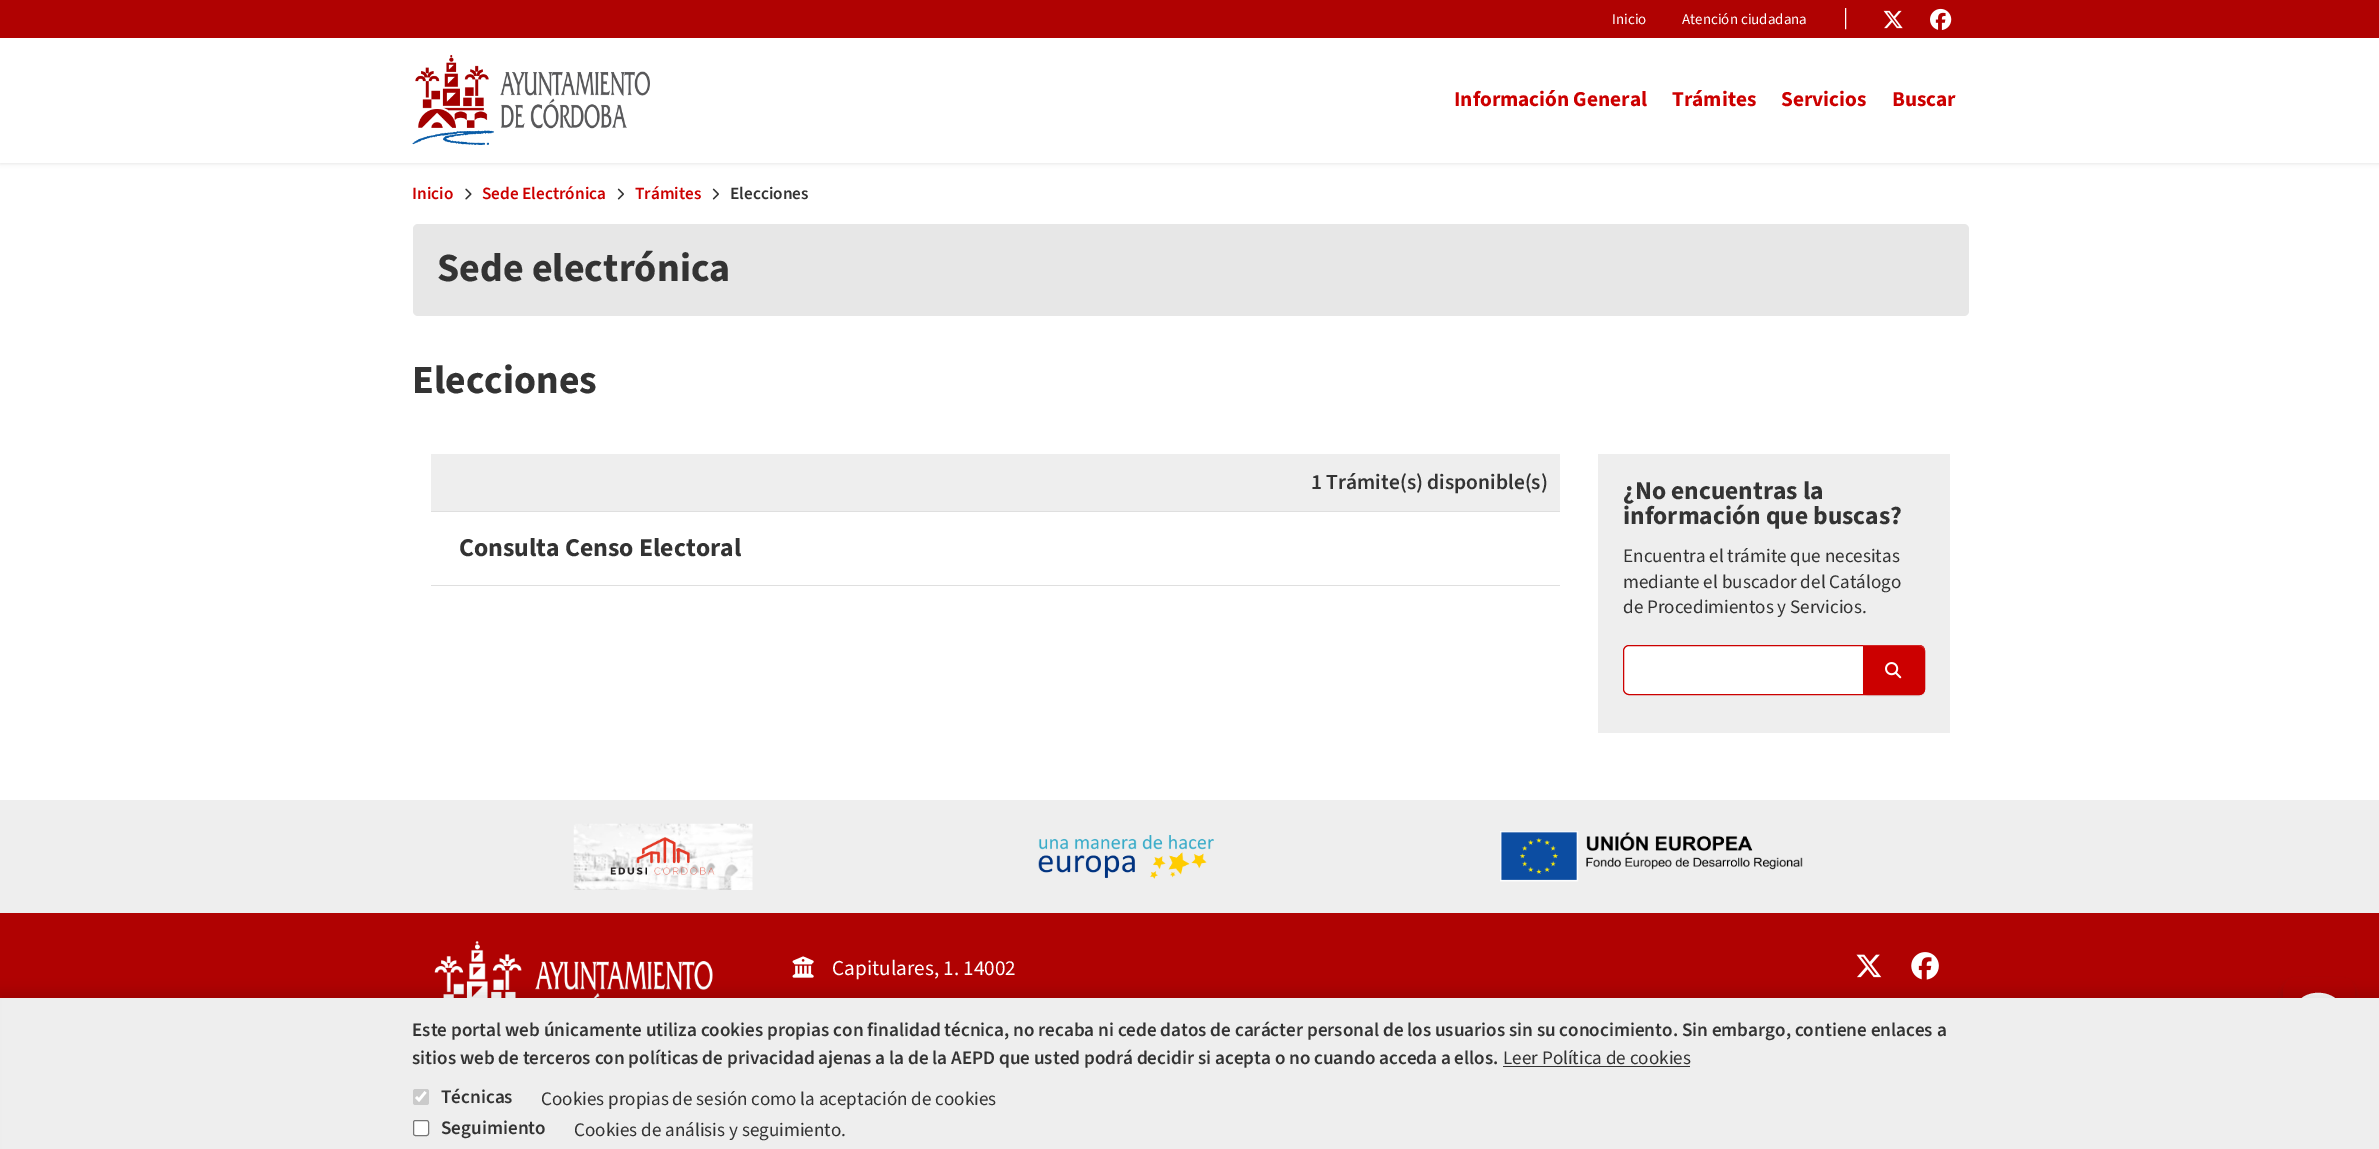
%!PS-Adobe-3.0
%%BoundingBox: 0 0 2379 1149
%%LanguageLevel: 3
%%Pages: 1
%%EndComments
%%BeginProlog
/setink { 3 { 255 div 3 1 roll } repeat setrgbcolor } def
/usefont { [ exch dup neg 0 0 3 -1 roll 0 0 ] selectfont } def
/drawtext { setink usefont moveto show } def
/fillbox { setink rectfill } def
/setalpha { dup .setfillconstantalpha .setstrokeconstantalpha } def
/rrect { 5 dict begin { /r /h /w /y /x } { exch def } forall
  x r add y moveto x w add y 2 copy h add r arct x w add y h add x 1 index r arct
  x y h add x y r arct x y 2 copy exch w add exch r arct closepath end } def
/softshadow { 12 dict begin { /a /b /q /h /w /y /x } { exch def } forall gsave /was 0 def
  9 -2 -9 { dup b mul 4 div /e exch def 1 sub .425 mul 2.718 exch exp 1 add a .99 .min exch div /now exch def
    1 1 now sub 1 was sub div sub setalpha /was now def
    w h .min e 2 mul add 0 gt { x e sub y e sub w e 2 mul add h e 2 mul add
      q e add b .6 mul add w h .min 2 div e add .min 0 .max rrect fill } if } for grestore end } def
/drawimage { 5 dict begin { /h /w /y /x /name } { exch def } forall
  gsave x y translate w h scale
  w h 8 [w 0 0 h 0 0] name (r) file false 3 colorimage grestore end } def
%%EndProlog
%%BeginSetup
<< /PageSize [2379 1149] /PageUsesTransparency true >> setpagedevice
%%EndSetup
%%Page: 1 1
0 .pushpdf14devicefilter
0 1149 translate 1 -1 scale
4 setmiterlimit
0 0 2379 1149 255 255 255 fillbox
190 190 190 setink
0 0 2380 163 0 2.5 0.5 softshadow
0 38 2379 125 255 255 255 fillbox
0 0 2379 38 176 2 2 fillbox
(Inicio) 1612 24 /SourceSans3-Regular 15 255 255 255 drawtext
(Atención ciudadana) 1682 24 /SourceSans3-Regular 15 255 255 255 drawtext
(|) 1843 24 /SourceSans3-Regular 21.25 255 255 255 drawtext
(assets/img1.rgb) 1883 10 20 19 drawimage
(assets/img2.rgb) 1930 8 22 22 drawimage
(assets/img3.rgb) 412 55 238 90 drawimage
(Información General) 1454 106 /SourceSans3-Bold 21.25 204 0 0 drawtext
(Trámites) 1672 106 /SourceSans3-Bold 21.25 204 0 0 drawtext
(Servicios) 1781 106 /SourceSans3-Bold 21.25 204 0 0 drawtext
(Buscar) 1892 106 /SourceSans3-Bold 21.25 204 0 0 drawtext
(Inicio) 412 199 /SourceSans3-SemiBold 17.25 204 0 0 drawtext
(assets/img4.rgb) 465 188 7 12 drawimage
(Sede Electrónica) 482 199 /SourceSans3-SemiBold 17.25 204 0 0 drawtext
(assets/img5.rgb) 617 188 7 12 drawimage
(Trámites) 635 199 /SourceSans3-SemiBold 17.25 204 0 0 drawtext
(assets/img5.rgb) 712 188 7 12 drawimage
(Elecciones) 730 199 /SourceSans3-SemiBold 17.25 51 51 51 drawtext
231 231 231 setink
413 224 1556 92 5 rrect fill
(Sede electrónica) 437 281 /SourceSans3-Bold 40 51 51 51 drawtext
(Elecciones) 412 393 /SourceSans3-Bold 39.75 51 51 51 drawtext
431 454 1129 57 238 238 238 fillbox
(1 Trámite\(s\) disponible\(s\)) 1311 489 /SourceSans3-SemiBold 21.5 51 51 51 drawtext
431 511 1129 1 223 223 223 fillbox
431 585 1129 1 223 223 223 fillbox
(Consulta Censo Electoral) 459 556 /SourceSans3-Bold 25.75 51 51 51 drawtext
1598 454 352 279 238 238 238 fillbox
(¿No encuentras la) 1623 499 /SourceSans3-Bold 25.5 51 51 51 drawtext
(información que buscas?) 1623 524 /SourceSans3-Bold 25.5 51 51 51 drawtext
(Encuentra el trámite que necesitas) 1623 562 /SourceSans3-Regular 19.12 51 51 51 drawtext
(mediante el buscador del Catálogo) 1623 588 /SourceSans3-Regular 19.12 51 51 51 drawtext
(de Procedimientos y Servicios.) 1623 613 /SourceSans3-Regular 19.12 51 51 51 drawtext
255 255 255 setink
1623.5 645.5 301 49 5.5 rrect gsave fill grestore
204 0 0 setink
stroke
0 0 0 setink
1863 646 62 50 6 0.5 0.07 softshadow
204 0 0 setink
1863 645 moveto 1919 645 lineto 1922.5 645 1925 647.5 1925 651 curveto 1925 689 lineto 1925 692.5 1922.5 695 1919 695 curveto 1863 695 lineto closepath fill
0.15 setalpha
255 255 255 setink
1863 645 moveto 1863 646 lineto 1919 646 lineto 1922 646 1925 649 1925 652 curveto 1925 648 1923 645 1919 645 curveto closepath fill
1 setalpha
(assets/img6.rgb) 1885 662 17 17 drawimage
0 800 2379 113 238 238 238 fillbox
(assets/img7.rgb) 573 823 180 67 drawimage
(assets/img8.rgb) 1038 835 176 44 drawimage
(assets/img9.rgb) 1500 831 303 51 drawimage
0 913 2379 85 176 2 2 fillbox
51 51 51 setink
2281 980 75 75 14 2.5 0.15 softshadow
176 2 2 setink
2283 978 72 72 13 rrect fill
255 255 255 setink
2342 1012 moveto 2342 1028 2322 1034 2309 1030 curveto 2299 1037 2293 1034 2295 1032 curveto 2298 1029 2299 1026 2299 1023 curveto 2296 1019 2294 1014 2295 1009 curveto 2299 986 2342 988 2342 1012 curveto closepath fill
(assets/img10.rgb) 434 941 279 57 drawimage
(assets/img11.rgb) 792 956 22 22 drawimage
(Capitulares, 1. 14002) 832 975 /SourceSans3-Regular 21.25 255 255 255 drawtext
(assets/img12.rgb) 1856 954 26 24 drawimage
(assets/img13.rgb) 1911 952 28 28 drawimage
0 0 0 setink
-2 991 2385 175 0 5.5 0.1 softshadow
2 998 2377 151 238 238 238 fillbox
(Este portal web únicamente utiliza cookies propias con finalidad técnica, no recaba ni cede datos de carácter personal de los usuarios sin su conocimiento. Sin embargo, contiene enlaces a) 412 1036 /SourceSans3-SemiBold 19.12 51 51 51 drawtext
(sitios web de terceros con políticas de privacidad ajenas a la de la AEPD que usted podrá decidir si acepta o no cuando acceda a ellos.) 412 1064 /SourceSans3-SemiBold 19.12 51 51 51 drawtext
(Leer Política de cookies) 1503 1064 /SourceSans3-Regular 19.12 51 51 51 drawtext
1503 1066 187 1 51 51 51 fillbox
202 202 202 setink
413 1089 16 16 2.5 rrect fill
255 255 255 setink
2.6 setlinewidth
416 1097 moveto 419 1100 lineto 425.5 1092 lineto stroke
(Técnicas) 441 1103 /SourceSans3-SemiBold 19.12 51 51 51 drawtext
(Cookies propias de sesión como la aceptación de cookies) 541 1105 /SourceSans3-Regular 19.12 51 51 51 drawtext
255 255 255 setink
413.5 1120.5 15 15 2 rrect gsave fill grestore
118 118 118 setink
1 setlinewidth
stroke
(Seguimiento) 441 1134 /SourceSans3-SemiBold 19.12 51 51 51 drawtext
(Cookies de análisis y seguimiento.) 574 1136 /SourceSans3-Regular 19.12 51 51 51 drawtext
.poppdf14devicefilter showpage
%%EOF
